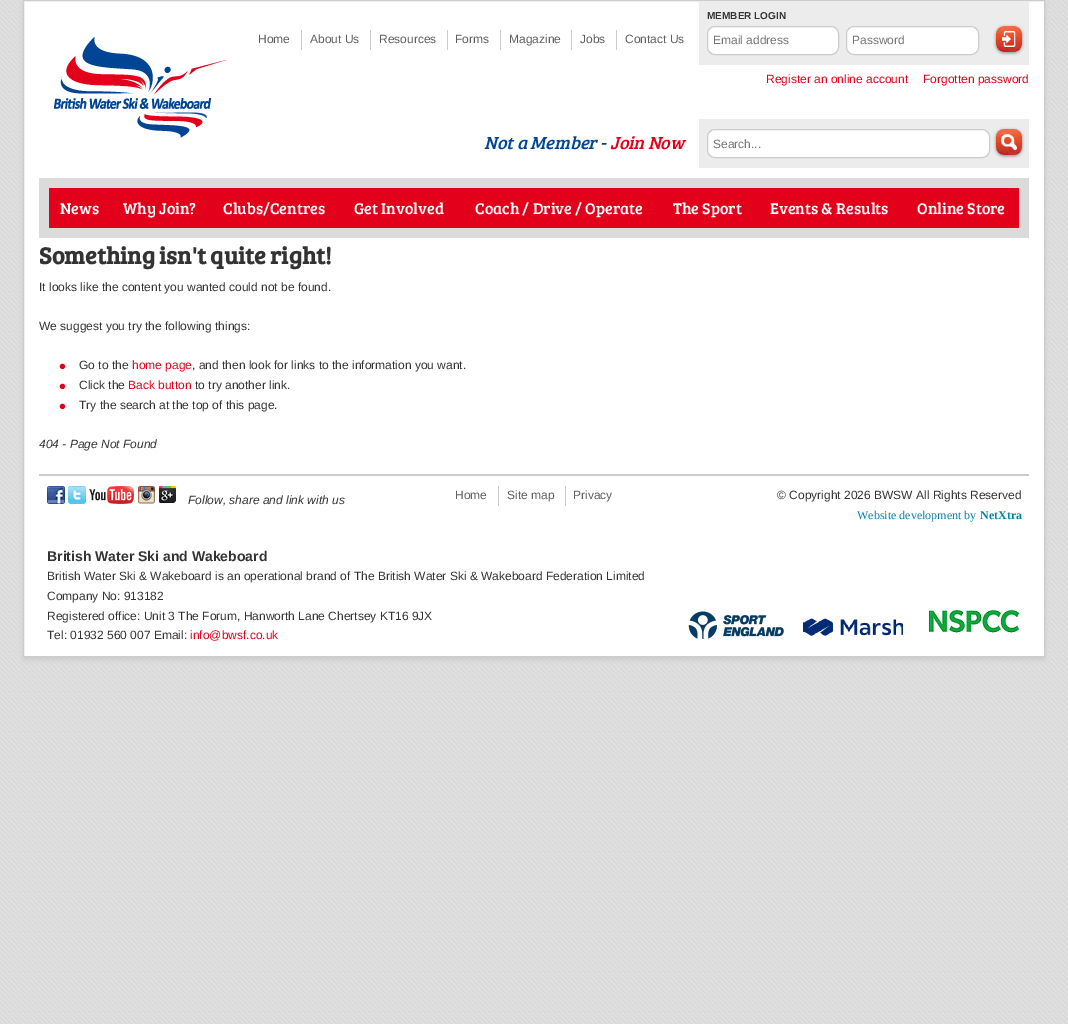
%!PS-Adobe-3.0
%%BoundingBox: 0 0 1068 1024
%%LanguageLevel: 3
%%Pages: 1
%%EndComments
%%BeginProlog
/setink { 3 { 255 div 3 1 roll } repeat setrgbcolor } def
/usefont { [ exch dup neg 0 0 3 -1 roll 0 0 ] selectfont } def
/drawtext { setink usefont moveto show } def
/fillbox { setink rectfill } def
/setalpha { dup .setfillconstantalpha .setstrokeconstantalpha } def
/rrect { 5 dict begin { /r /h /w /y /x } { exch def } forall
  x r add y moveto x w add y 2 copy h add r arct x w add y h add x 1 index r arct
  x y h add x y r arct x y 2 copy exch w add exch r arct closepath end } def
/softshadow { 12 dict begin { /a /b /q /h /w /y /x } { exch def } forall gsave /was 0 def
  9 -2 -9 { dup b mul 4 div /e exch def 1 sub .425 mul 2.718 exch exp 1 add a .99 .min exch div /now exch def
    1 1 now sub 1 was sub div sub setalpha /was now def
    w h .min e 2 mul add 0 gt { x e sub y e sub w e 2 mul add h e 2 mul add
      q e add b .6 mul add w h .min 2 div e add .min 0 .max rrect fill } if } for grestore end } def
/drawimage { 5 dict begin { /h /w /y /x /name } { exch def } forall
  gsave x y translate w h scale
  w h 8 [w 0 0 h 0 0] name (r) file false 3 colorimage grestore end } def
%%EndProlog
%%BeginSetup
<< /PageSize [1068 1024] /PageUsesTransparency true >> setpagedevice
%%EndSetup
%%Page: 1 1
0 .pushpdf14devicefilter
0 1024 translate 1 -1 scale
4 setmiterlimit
0 0 1068 1024 255 255 255 fillbox
(assets/img1.rgb) 0 0 1068 1024 drawimage
204 204 204 setink
23 3 1022 657 0 2.5 1 softshadow
255 255 255 setink
23.5 0.5 moveto 1044.5 0.5 lineto 1044.5 656.5 lineto 23.5 656.5 lineto closepath gsave fill grestore
204 204 204 setink
stroke
(assets/img2.rgb) 54 36 172 102 drawimage
(Home) 258 43 /LiberationSans-Regular 12 95 95 95 drawtext
301 30 1 20 204 204 204 fillbox
(About Us) 310 43 /LiberationSans-Regular 12 95 95 95 drawtext
370 30 1 20 204 204 204 fillbox
(Resources) 379 43 /LiberationSans-Regular 12 95 95 95 drawtext
447 30 1 20 204 204 204 fillbox
(Forms) 455 43 /LiberationSans-Regular 12 95 95 95 drawtext
500 30 1 20 204 204 204 fillbox
(Magazine) 509 43 /LiberationSans-Regular 12 95 95 95 drawtext
571 30 1 20 204 204 204 fillbox
(Jobs) 580 43 /LiberationSans-Regular 12 95 95 95 drawtext
616 30 1 20 204 204 204 fillbox
(Contact Us) 625 43 /LiberationSans-Regular 12 95 95 95 drawtext
699 1 330 64 236 236 236 fillbox
(MEMBER LOGIN) 707 19 /LiberationSans-Bold 10 51 51 51 drawtext
255 255 255 setink
707.5 26.5 131 28 7.5 rrect gsave fill grestore
204 204 204 setink
stroke
(Email address) 713 44 /LiberationSans-Regular 12 117 117 117 drawtext
255 255 255 setink
846.5 26.5 132 28 7.5 rrect gsave fill grestore
204 204 204 setink
stroke
(Password) 852 44 /LiberationSans-Regular 12 117 117 117 drawtext
0 0 0 setink
996 27 26 26 8 1.5 0.4 softshadow
(assets/img3.rgb) 996 26 26 26 drawimage
(Register an online account) 766 83 /LiberationSans-Regular 12 226 0 26 drawtext
(Forgotten password) 923 83 /LiberationSans-Regular 12 226 0 26 drawtext
(Not a Member -) 484 149 /BreeSerif-Italic 18 0 68 148 drawtext
(Join Now) 610 149 /BreeSerif-Italic 18 226 0 26 drawtext
699 119 330 49 236 236 236 fillbox
255 255 255 setink
707.5 129.5 282 28 7.5 rrect gsave fill grestore
204 204 204 setink
stroke
(Search...) 713 148 /LiberationSans-Regular 12 117 117 117 drawtext
0 0 0 setink
996 130 26 26 8 1.5 0.4 softshadow
(assets/img4.rgb) 996 129 26 26 drawimage
39 178 990 60 219 219 219 fillbox
49 188 970 40 226 0 26 fillbox
(News) 60 214 /BreeSerif-Regular 16 255 255 255 drawtext
(Why Join?) 123 214 /BreeSerif-Regular 16 255 255 255 drawtext
(Clubs/Centres) 223 214 /BreeSerif-Regular 16 255 255 255 drawtext
(Get Involved) 354 214 /BreeSerif-Regular 16 255 255 255 drawtext
(Coach / Drive / Operate) 475 214 /BreeSerif-Regular 16 255 255 255 drawtext
(The Sport) 673 214 /BreeSerif-Regular 16 255 255 255 drawtext
(Events & Results) 770 214 /BreeSerif-Regular 16 255 255 255 drawtext
(Online Store) 917 214 /BreeSerif-Regular 16 255 255 255 drawtext
(Something isn't quite right!) 39 264 /BreeSerif-Bold 24 51 51 51 drawtext
(It looks like the content you wanted could not be found.) 39 291 /LiberationSans-Regular 12 51 51 51 drawtext
(We suggest you try the following things:) 39 330 /LiberationSans-Regular 12 51 51 51 drawtext
(•) 59 373 /LiberationSans-Regular 20 226 0 26 drawtext
(Go to the) 79 369 /LiberationSans-Regular 12 51 51 51 drawtext
(home page) 132 369 /LiberationSans-Regular 12 226 0 26 drawtext
(, and then look for links to the information you want.) 192 369 /LiberationSans-Regular 12 51 51 51 drawtext
(•) 59 393 /LiberationSans-Regular 20 226 0 26 drawtext
(Click the) 79 389 /LiberationSans-Regular 12 51 51 51 drawtext
(Back button) 128 389 /LiberationSans-Regular 12 226 0 26 drawtext
(to try another link.) 195 389 /LiberationSans-Regular 12 51 51 51 drawtext
(•) 59 413 /LiberationSans-Regular 20 226 0 26 drawtext
(Try the search at the top of this page.) 79 409 /LiberationSans-Regular 12 51 51 51 drawtext
(404 - Page Not Found) 39 448 /LiberationSans-Italic 12 51 51 51 drawtext
39 474 990 2 204 204 204 fillbox
(assets/img5.rgb) 47 486 18 18 drawimage
(assets/img6.rgb) 68 486 18 18 drawimage
(assets/img7.rgb) 89 486 45 18 drawimage
(assets/img8.rgb) 138 486 17 18 drawimage
(assets/img9.rgb) 159 486 17 17 drawimage
(Follow, share and link with us) 188 504 /LiberationSans-Italic 12 51 51 51 drawtext
(Home) 455 499 /LiberationSans-Regular 12 95 95 95 drawtext
498 486 1 20 204 204 204 fillbox
(Site map) 507 499 /LiberationSans-Regular 12 95 95 95 drawtext
565 486 1 20 204 204 204 fillbox
(Privacy) 573 499 /LiberationSans-Regular 12 95 95 95 drawtext
(© Copyright 2026 BWSW All Rights Reserved) 777 499 /LiberationSans-Regular 12 51 51 51 drawtext
(Website development by) 857 519 /LiberationSerif-Regular 12 0 132 171 drawtext
(NetXtra) 980 519 /LiberationSerif-Bold 12 0 132 171 drawtext
(British Water Ski and Wakeboard) 47 561 /LiberationSans-Bold 14 51 51 51 drawtext
(British Water Ski & Wakeboard is an operational brand of The British Water Ski & Wakeboard Federation Limited) 47 580 /LiberationSans-Regular 12 51 51 51 drawtext
(Company No: 913182) 47 600 /LiberationSans-Regular 12 51 51 51 drawtext
(Registered office: Unit 3 The Forum, Hanworth Lane Chertsey KT16 9JX) 47 620 /LiberationSans-Regular 12 51 51 51 drawtext
(Tel: 01932 560 007 Email:) 47 639 /LiberationSans-Regular 12 51 51 51 drawtext
(info@bwsf.co.uk) 190 639 /LiberationSans-Regular 12 226 0 26 drawtext
(assets/img10.rgb) 688 611 96 28 drawimage
(assets/img11.rgb) 803 618 100 18 drawimage
(assets/img12.rgb) 928 609 92 24 drawimage
.poppdf14devicefilter showpage
%%EOF
